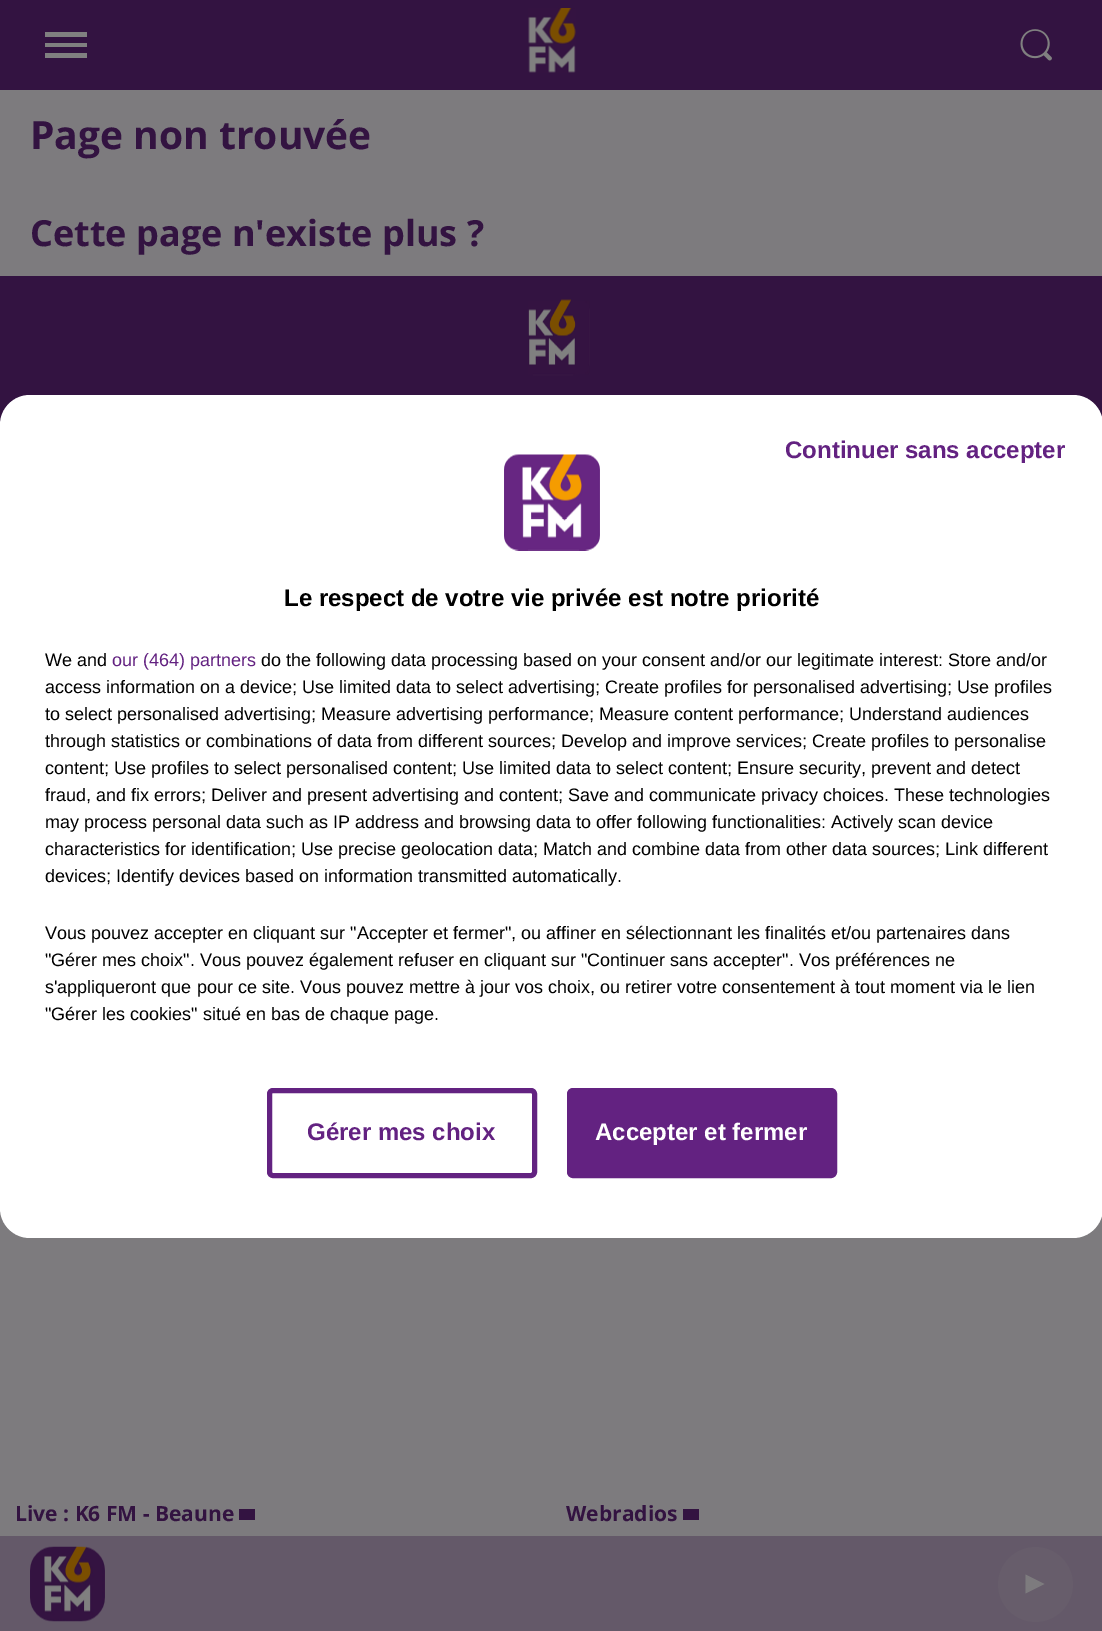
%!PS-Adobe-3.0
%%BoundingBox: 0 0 1102 1631
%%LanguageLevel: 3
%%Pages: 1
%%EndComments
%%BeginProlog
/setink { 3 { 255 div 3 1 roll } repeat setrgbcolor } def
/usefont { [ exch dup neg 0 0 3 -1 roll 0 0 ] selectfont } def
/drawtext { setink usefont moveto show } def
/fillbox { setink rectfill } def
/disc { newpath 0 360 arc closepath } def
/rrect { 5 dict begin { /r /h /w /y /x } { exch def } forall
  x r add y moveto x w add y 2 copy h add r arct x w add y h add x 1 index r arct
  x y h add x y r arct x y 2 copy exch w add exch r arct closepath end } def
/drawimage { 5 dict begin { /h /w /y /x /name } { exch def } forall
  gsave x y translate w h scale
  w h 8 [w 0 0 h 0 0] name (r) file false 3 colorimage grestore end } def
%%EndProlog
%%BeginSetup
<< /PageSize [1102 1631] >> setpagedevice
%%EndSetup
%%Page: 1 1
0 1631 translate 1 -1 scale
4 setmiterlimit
0 0 1102 1631 125 123 126 fillbox
(Page non trouvée) 30 149 /OpenSans-Bold 39 51 19 65 drawtext
(Cette page n'existe plus ?) 30 246 /OpenSans-Bold 36 51 19 65 drawtext
0 276 1102 149 51 19 65 fillbox
(assets/img1.rgb) 528 299 62 77 drawimage
0 0 1102 90 51 19 65 fillbox
128 128 128 setink
45 58 moveto 45 53 lineto 87 53 lineto 87 58 lineto closepath 45 47 moveto 45 43 lineto 87 43 lineto 87 47 lineto closepath 45 37 moveto 45 32 lineto 87 32 lineto 87 37 lineto closepath fill
(assets/img2.rgb) 528 8 48 65 drawimage
(assets/img3.rgb) 1020 29 32 32 drawimage
(Live : K6 FM - Beaune) 15 1521 /OpenSans-Bold 21 51 19 65 drawtext
239 1509 16 11 51 19 65 fillbox
(Webradios) 566 1521 /OpenSans-Bold 21 51 19 65 drawtext
683 1509 16 11 51 19 65 fillbox
0 1536 1102 95 100 89 105 fillbox
(assets/img4.rgb) 30 1546 75 76 drawimage
103 93 107 setink
1035.5 1584.5 37.5 disc fill
125 123 126 setink
1044.5 1584 moveto 1025.5 1593.5 lineto 1025.5 1574.5 lineto closepath fill
255 255 255 setink
0 395 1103 843 30 rrect fill
(Continuer sans accepter) 785 458 /LiberationSans-Bold 24 99 34 129 drawtext
5 setlinewidth
269.5 1090.5 265 85 3.5 rrect stroke
(Gérer mes choix) 307 1140 /LiberationSans-Bold 24 99 34 129 drawtext
569.5 1090.5 265 85 3.5 rrect gsave fill grestore
stroke
(Accepter et fermer) 595 1140 /LiberationSans-Bold 24 255 255 255 drawtext
(assets/img5.rgb) 504 454 96 97 drawimage
(Le respect de votre vie privée est notre priorité) 284 606 /LiberationSans-Bold 24 0 0 0 drawtext
(We and) 45 666 /LiberationSans-Regular 18 0 0 0 drawtext
(our \(464\) partners) 112 666 /LiberationSans-Regular 18 99 34 129 drawtext
(do the following data processing based on your consent and/or our legitimate interest: Store and/or) 261 666 /LiberationSans-Regular 18 0 0 0 drawtext
(access information on a device; Use limited data to select advertising; Create profiles for personalised advertising; Use profiles) 45 693 /LiberationSans-Regular 18 0 0 0 drawtext
(to select personalised advertising; Measure advertising performance; Measure content performance; Understand audiences) 45 720 /LiberationSans-Regular 18 0 0 0 drawtext
(through statistics or combinations of data from different sources; Develop and improve services; Create profiles to personalise) 45 747 /LiberationSans-Regular 18 0 0 0 drawtext
(content; Use profiles to select personalised content; Use limited data to select content; Ensure security, prevent and detect) 45 774 /LiberationSans-Regular 18 0 0 0 drawtext
(fraud, and fix errors; Deliver and present advertising and content; Save and communicate privacy choices. These technologies) 45 801 /LiberationSans-Regular 18 0 0 0 drawtext
(may process personal data such as IP address and browsing data to offer following functionalities: Actively scan device) 45 828 /LiberationSans-Regular 18 0 0 0 drawtext
(characteristics for identification; Use precise geolocation data; Match and combine data from other data sources; Link different) 45 855 /LiberationSans-Regular 18 0 0 0 drawtext
(devices; Identify devices based on information transmitted automatically.) 45 882 /LiberationSans-Regular 18 0 0 0 drawtext
(Vous pouvez accepter en cliquant sur "Accepter et fermer", ou affiner en sélectionnant les finalités et/ou partenaires dans) 45 939 /LiberationSans-Regular 18 0 0 0 drawtext
("Gérer mes choix". Vous pouvez également refuser en cliquant sur "Continuer sans accepter". Vos préférences ne) 45 966 /LiberationSans-Regular 18 0 0 0 drawtext
(s'appliqueront que pour ce site. Vous pouvez mettre à jour vos choix, ou retirer votre consentement à tout moment via le lien) 45 993 /LiberationSans-Regular 18 0 0 0 drawtext
("Gérer les cookies" situé en bas de chaque page.) 45 1020 /LiberationSans-Regular 18 0 0 0 drawtext
showpage
%%EOF
